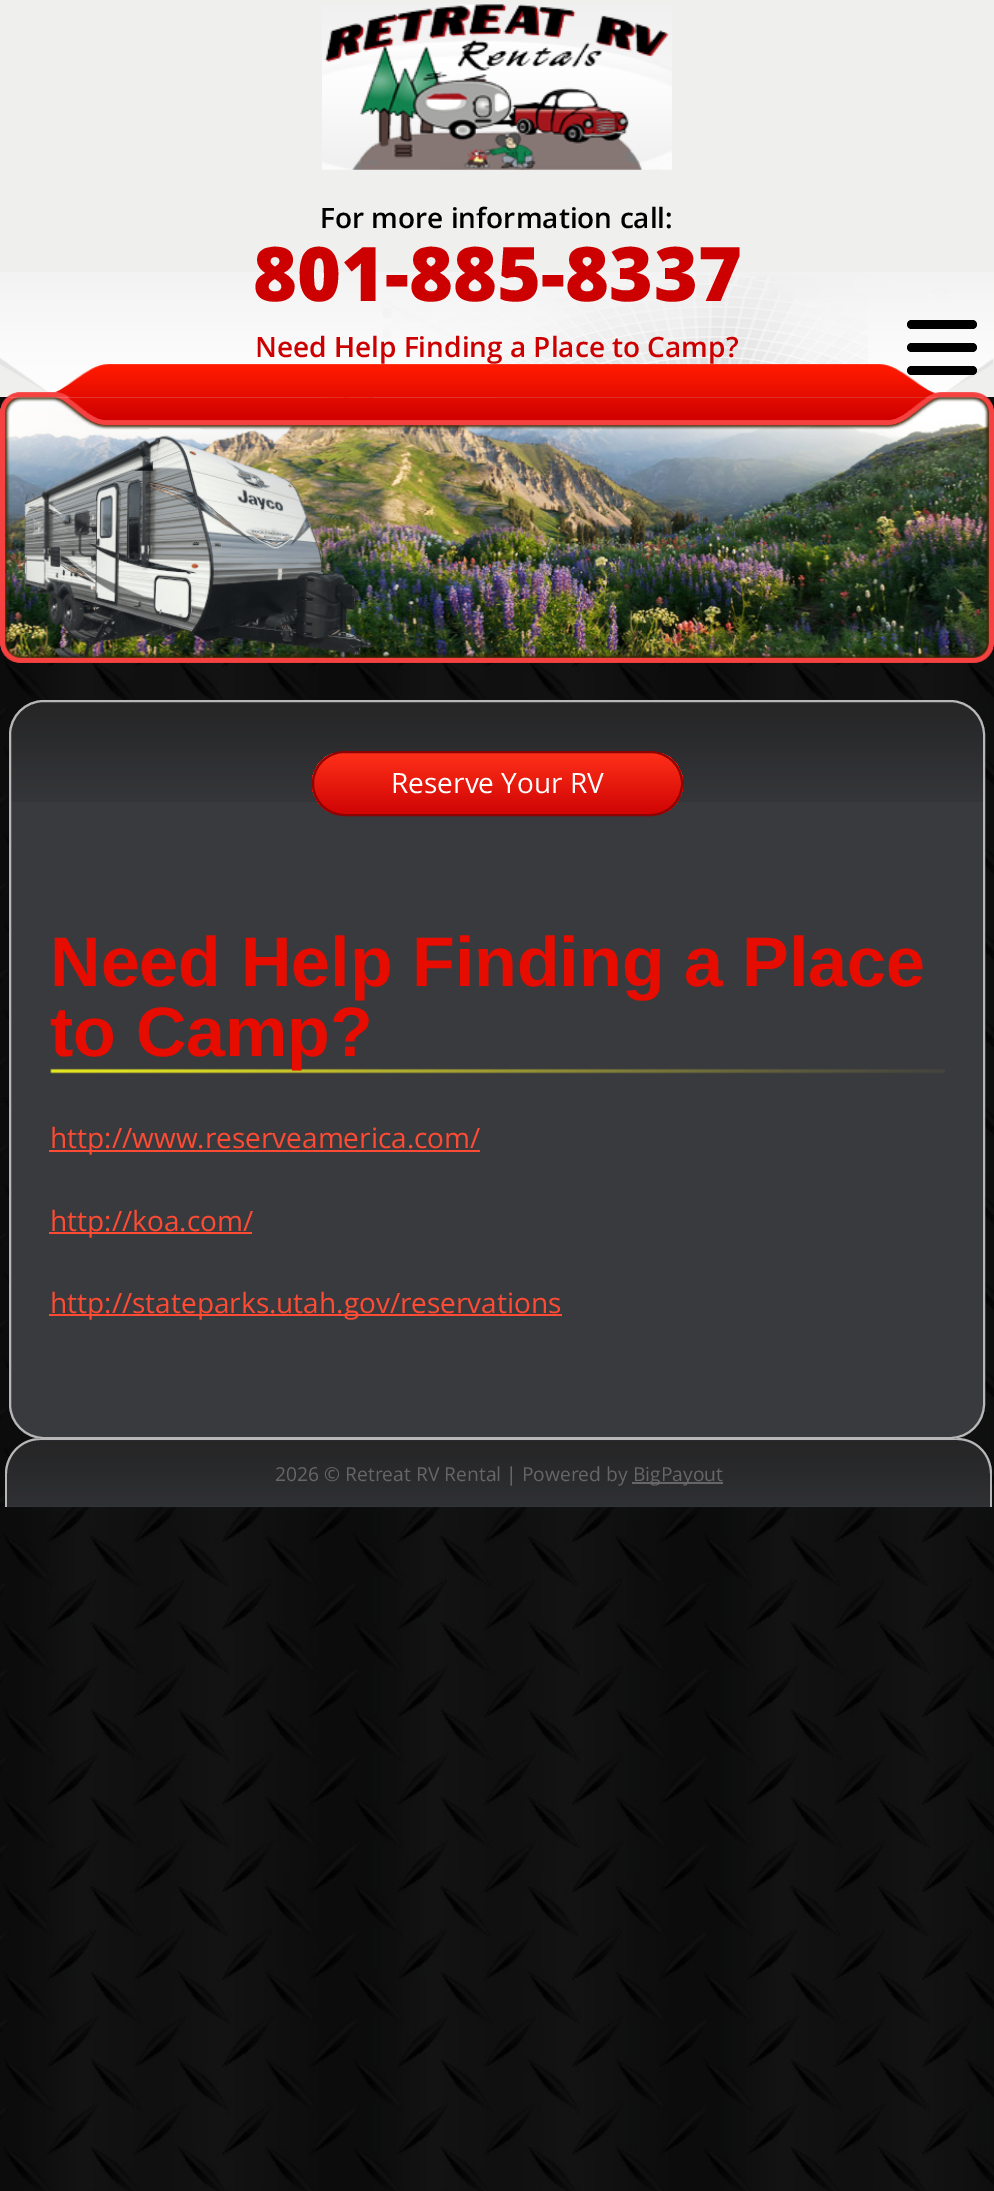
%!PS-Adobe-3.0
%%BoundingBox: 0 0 994 2191
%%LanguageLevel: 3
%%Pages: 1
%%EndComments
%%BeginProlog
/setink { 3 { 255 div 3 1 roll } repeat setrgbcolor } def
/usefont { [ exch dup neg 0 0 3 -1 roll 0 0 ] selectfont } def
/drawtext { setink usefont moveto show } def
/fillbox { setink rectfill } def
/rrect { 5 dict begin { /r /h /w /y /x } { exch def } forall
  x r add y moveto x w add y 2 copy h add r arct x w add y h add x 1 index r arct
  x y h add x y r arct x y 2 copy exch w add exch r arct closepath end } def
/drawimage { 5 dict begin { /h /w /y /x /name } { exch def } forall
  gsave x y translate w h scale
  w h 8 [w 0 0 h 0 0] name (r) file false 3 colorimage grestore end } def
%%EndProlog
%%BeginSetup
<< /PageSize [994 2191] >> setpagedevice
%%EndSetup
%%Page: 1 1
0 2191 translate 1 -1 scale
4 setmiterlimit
0 0 994 2191 255 255 255 fillbox
(assets/img1.rgb) 0 397 994 1794 drawimage
0 0 994 397 239 239 238 fillbox
(assets/img4.rgb) 0 397 994 261 drawimage
(assets/img5.rgb) 0 397 994 266 drawimage
(assets/img2.rgb) 0 272 994 126 drawimage
(assets/img3.rgb) 322 4 350 166 drawimage
(For more information call:) 320 228 /OpenSans-SemiBold 28 0 0 0 drawtext
(801-885-8337) 253 301 /OpenSans-ExtraBold 75.25 204 0 0 drawtext
(Need Help Finding a Place to Camp?) 255 357 /OpenSans-SemiBold 28 204 0 0 drawtext
0 0 0 setink
907 320 70 9 4.5 rrect fill
907 343 70 9 4.5 rrect fill
907 366 70 9 4.5 rrect fill
57 58 62 setink
40 1439 moveto 957 1439 lineto 976.5 1439 992 1454.5 992 1474 curveto 992 1507 lineto 5 1507 lineto 5 1474 lineto 5 1454.5 20.5 1439 40 1439 curveto closepath fill
(assets/img8.rgb) 5 1440 987 67 drawimage
183 183 183 setink
40 1438 moveto 957 1438 lineto 977 1438 992 1454 992 1474 curveto 992 1507 lineto 5 1507 lineto 5 1474 lineto 5 1454 21 1438 40 1438 curveto closepath 40 1440 moveto 957 1440 lineto 976 1440 990 1455 990 1474 curveto 990 1507 lineto 7 1507 lineto 7 1474 lineto 7 1455 22 1440 40 1440 curveto closepath eofill
57 58 62 setink
9 700 976 739 35 rrect fill
(assets/img6.rgb) 9 701 976 101 drawimage
183 183 183 setink
2 setlinewidth
10 701 974 737 34 rrect stroke
gsave
312 751 371 65 32.5 rrect clip newpath
gsave 312 753 moveto 683 753 lineto 683 814 lineto 312 814 lineto closepath clip newpath
<< /ShadingType 2 /ColorSpace /DeviceRGB /Coords [497 753 497 814] /Extend [true true] /Function << /FunctionType 2 /Domain [0 1] /C0 [1 0.188 0.098] /C1 [0.812 0.016 0.016] /N 1 >> >> shfill grestore
grestore
141 2 2 setink
313 752 369 63 31.5 rrect stroke
(Reserve Your RV) 391 793 /OpenSans-Regular 28 255 255 255 drawtext
(assets/img7.rgb) 50 1068 895 6 drawimage
(Need Help Finding a Place) 50 986 /LiberationSans-Bold 70 230 13 0 drawtext
(to Camp?) 50 1056 /LiberationSans-Bold 70 230 13 0 drawtext
49 1150 431 2 255 75 51 fillbox
(http://www.reserveamerica.com/) 50 1148 /OpenSans-Regular 28 255 75 51 drawtext
49 1232 203 2 255 75 51 fillbox
(http://koa.com/) 50 1231 /OpenSans-Regular 28 255 75 51 drawtext
49 1314 513 2 255 75 51 fillbox
(http://stateparks.utah.gov/reservations) 50 1313 /OpenSans-Regular 28 255 75 51 drawtext
(2026 © Retreat RV Rental | Powered by) 275 1481 /OpenSans-Regular 19.25 102 102 102 drawtext
632 1482 91 2 102 102 102 fillbox
(BigPayout) 633 1481 /OpenSans-Regular 19.25 102 102 102 drawtext
showpage
%%EOF
